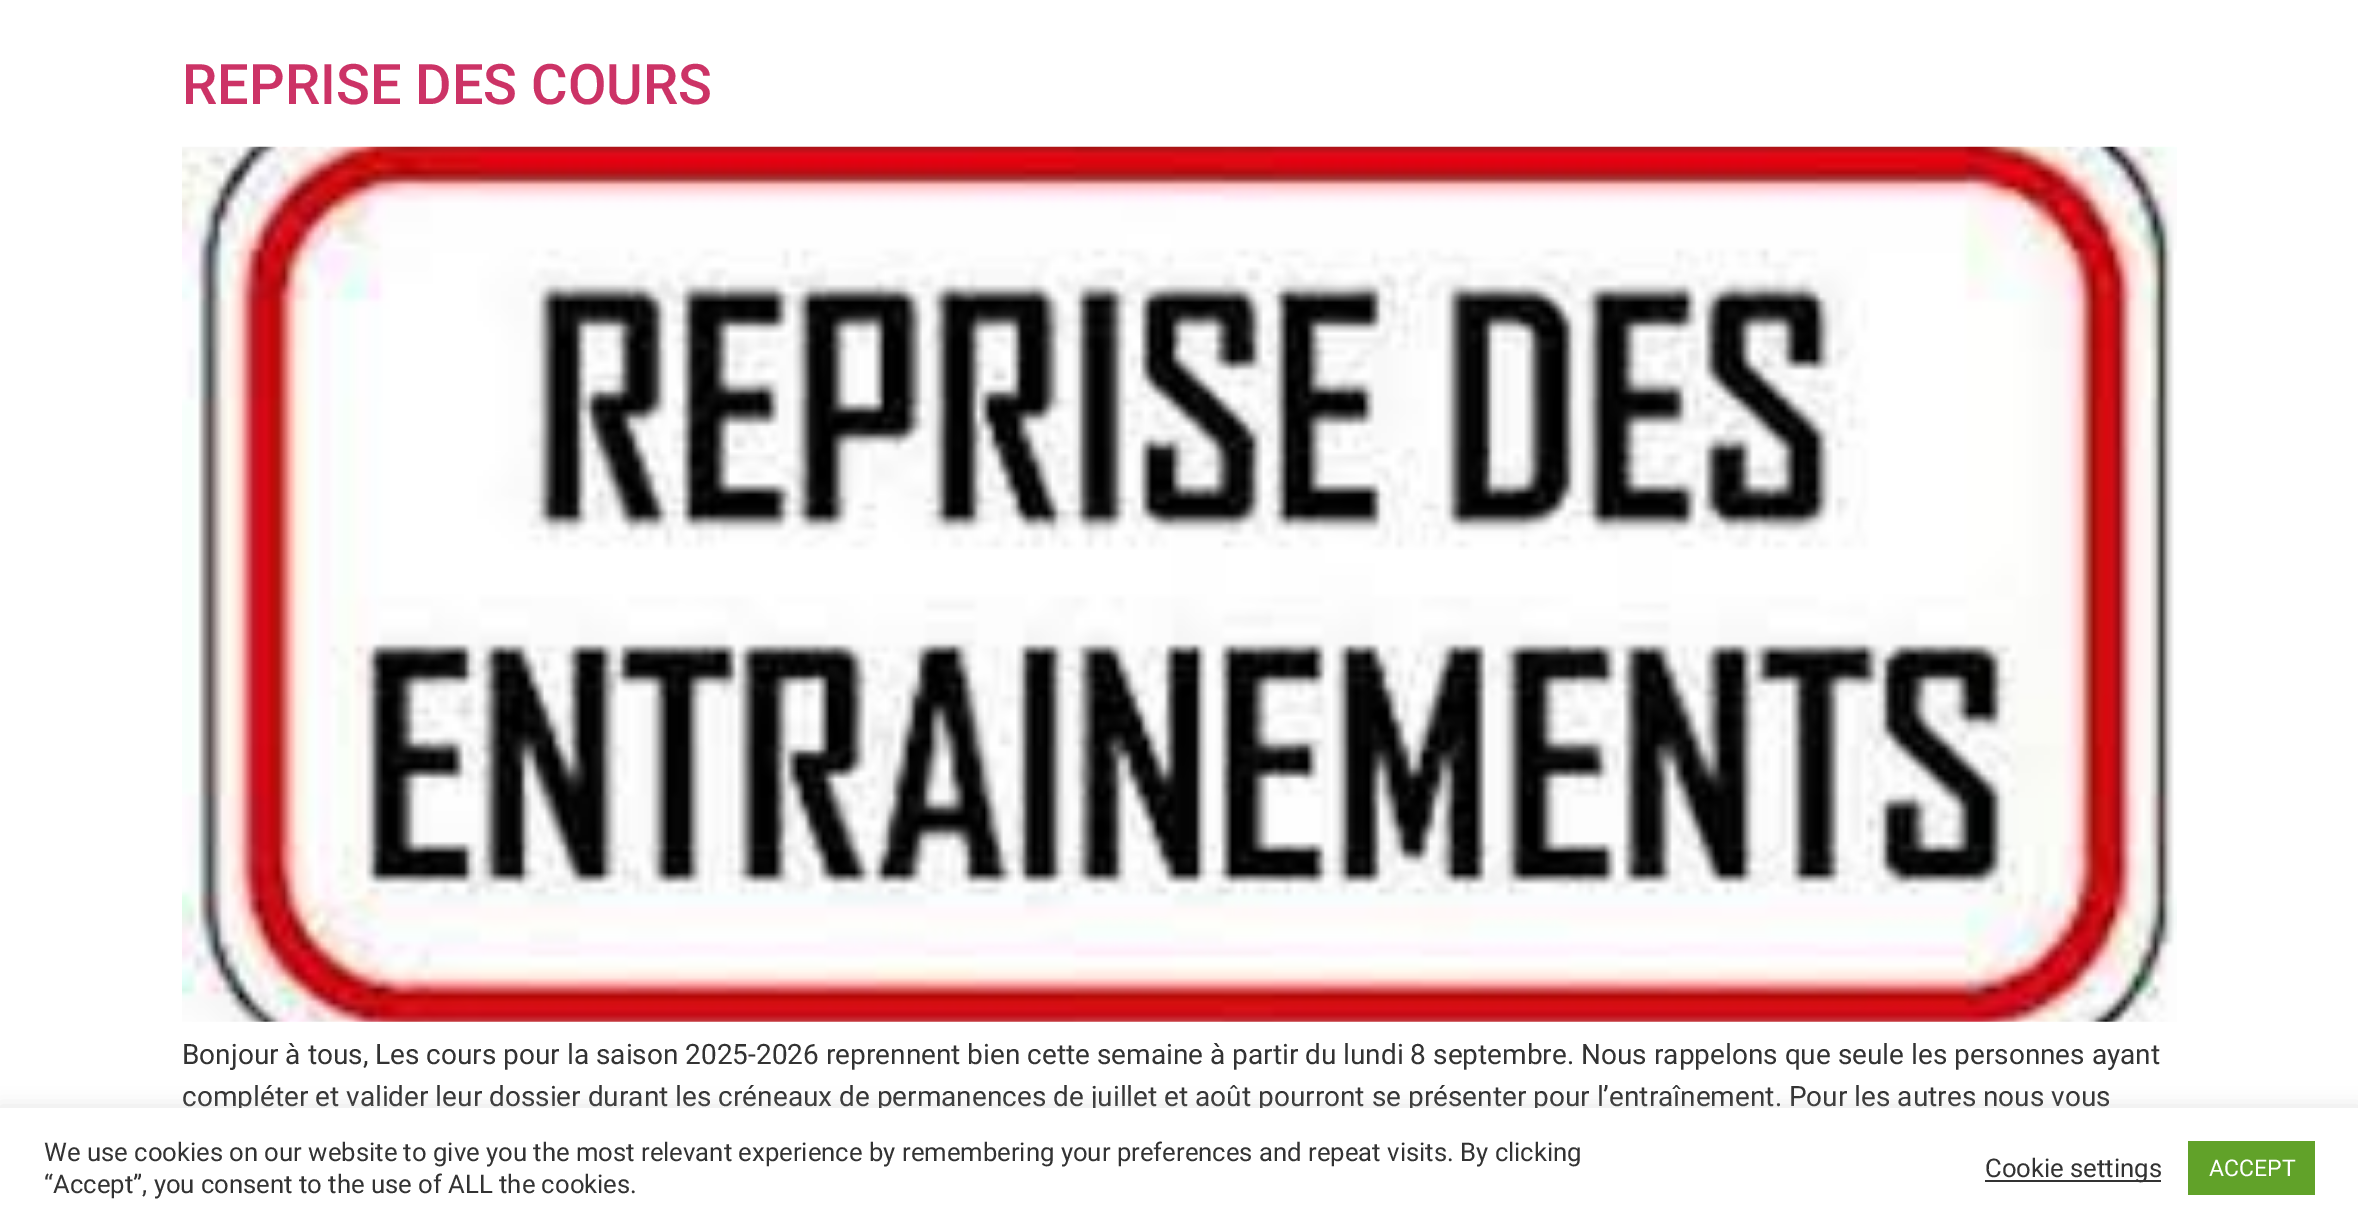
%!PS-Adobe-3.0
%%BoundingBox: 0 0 2358 1228
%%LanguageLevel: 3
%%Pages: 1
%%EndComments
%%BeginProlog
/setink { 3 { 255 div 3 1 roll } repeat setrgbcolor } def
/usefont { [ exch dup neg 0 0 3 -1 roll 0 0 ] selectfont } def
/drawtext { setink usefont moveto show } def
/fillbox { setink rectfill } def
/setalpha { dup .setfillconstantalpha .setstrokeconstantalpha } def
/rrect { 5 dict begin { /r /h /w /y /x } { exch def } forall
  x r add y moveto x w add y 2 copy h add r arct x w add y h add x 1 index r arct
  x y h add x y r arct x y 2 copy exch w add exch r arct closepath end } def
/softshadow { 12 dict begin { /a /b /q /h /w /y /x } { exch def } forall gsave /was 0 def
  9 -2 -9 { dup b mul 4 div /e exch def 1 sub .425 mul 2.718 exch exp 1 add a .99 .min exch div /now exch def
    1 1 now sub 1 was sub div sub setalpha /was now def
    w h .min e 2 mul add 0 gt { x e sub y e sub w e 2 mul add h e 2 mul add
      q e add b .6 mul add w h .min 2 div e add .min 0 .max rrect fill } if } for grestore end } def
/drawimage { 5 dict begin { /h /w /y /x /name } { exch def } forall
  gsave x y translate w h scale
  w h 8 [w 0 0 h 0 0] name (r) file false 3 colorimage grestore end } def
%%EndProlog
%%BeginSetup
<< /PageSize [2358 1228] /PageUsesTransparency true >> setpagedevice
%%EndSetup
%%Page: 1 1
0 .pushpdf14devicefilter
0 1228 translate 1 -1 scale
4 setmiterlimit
0 0 2358 1228 255 255 255 fillbox
(REPRISE DES COURS) 182 104 /Roboto-Medium 56 204 51 102 drawtext
(assets/img1.rgb) 182 146 1995 876 drawimage
(Bonjour à tous, Les cours pour la saison 2025-2026 reprennent bien cette semaine à partir du lundi 8 septembre. Nous rappelons que seule les personnes ayant) 182 1064 /Roboto-Regular 28 51 51 51 drawtext
(compléter et valider leur dossier durant les créneaux de permanences de juillet et août pourront se présenter pour l’entraînement. Pour les autres nous vous) 182 1106 /Roboto-Regular 28 51 51 51 drawtext
172 171 171 setink
0 1106 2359 121 0 9 0.3 softshadow
0 1108 2358 120 255 255 255 fillbox
(We use cookies on our website to give you the most relevant experience by remembering your preferences and repeat visits. By clicking) 44 1161 /Roboto-Regular 25.67 51 51 51 drawtext
(“Accept”, you consent to the use of ALL the cookies.) 44 1193 /Roboto-Regular 25.67 51 51 51 drawtext
1985 1180 176 2 51 51 51 fillbox
(Cookie settings) 1985 1177 /Roboto-Regular 25.67 51 51 51 drawtext
2188 1141 127 54 97 162 41 fillbox
(ACCEPT) 2209 1176 /Roboto-Regular 23 255 255 255 drawtext
.poppdf14devicefilter showpage
%%EOF
